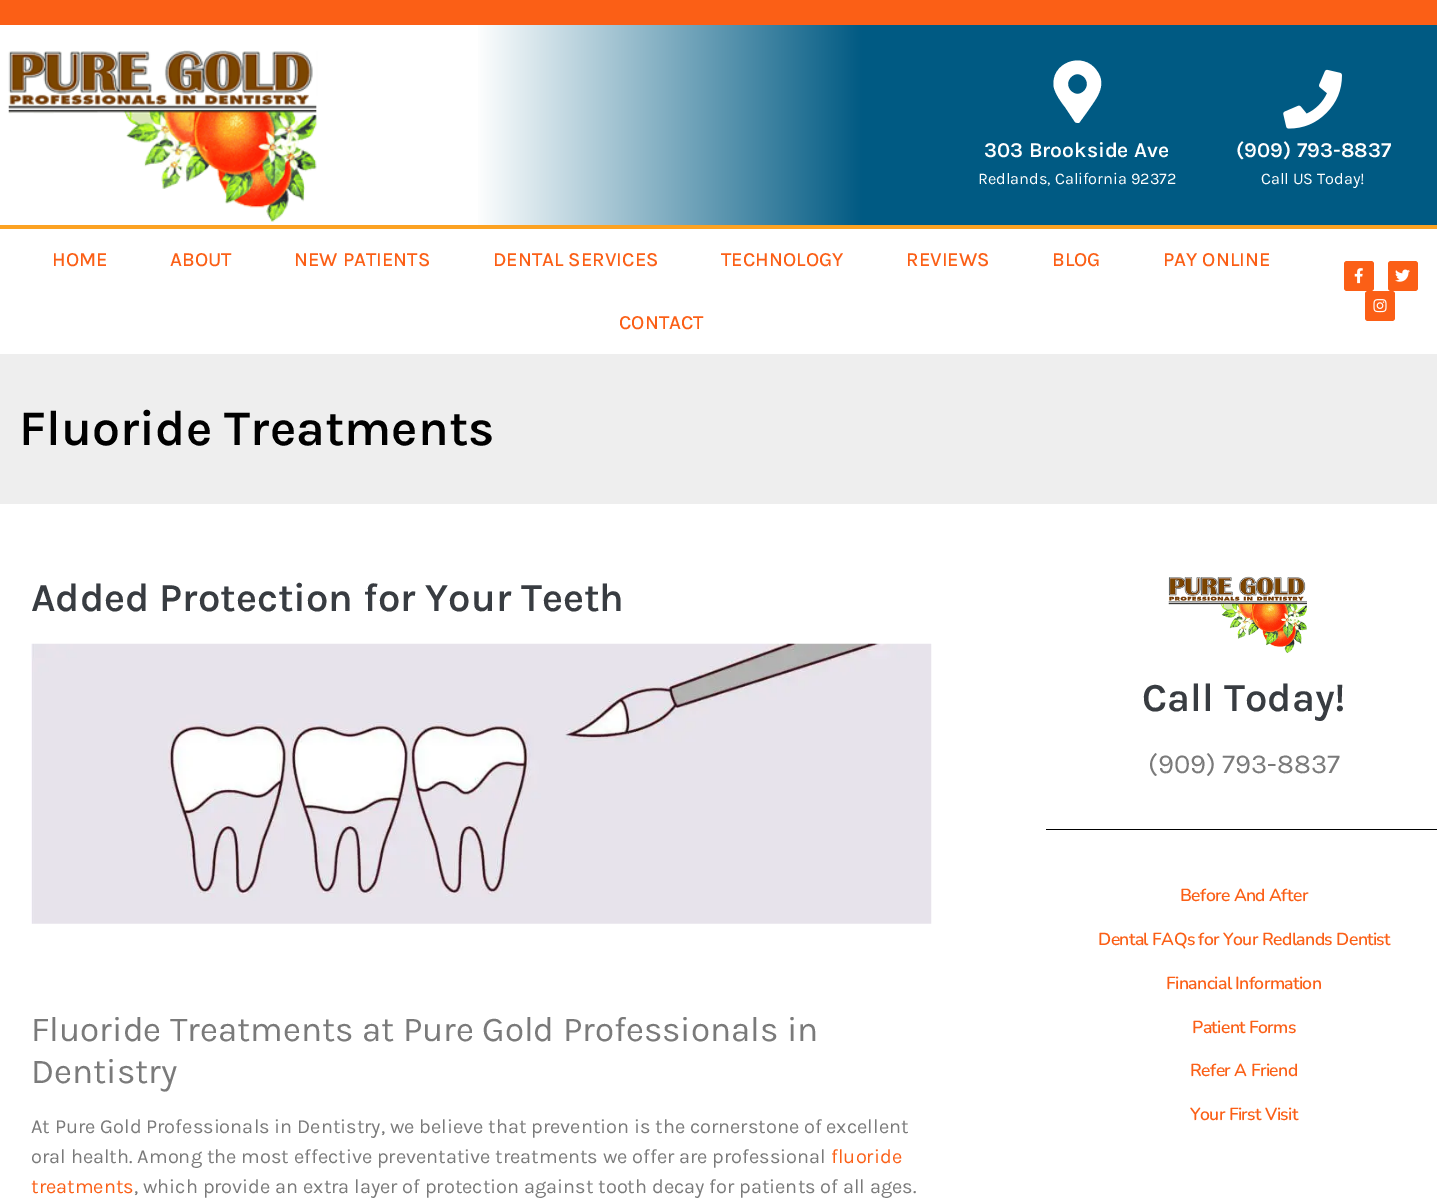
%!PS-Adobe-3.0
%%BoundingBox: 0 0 1437 1199
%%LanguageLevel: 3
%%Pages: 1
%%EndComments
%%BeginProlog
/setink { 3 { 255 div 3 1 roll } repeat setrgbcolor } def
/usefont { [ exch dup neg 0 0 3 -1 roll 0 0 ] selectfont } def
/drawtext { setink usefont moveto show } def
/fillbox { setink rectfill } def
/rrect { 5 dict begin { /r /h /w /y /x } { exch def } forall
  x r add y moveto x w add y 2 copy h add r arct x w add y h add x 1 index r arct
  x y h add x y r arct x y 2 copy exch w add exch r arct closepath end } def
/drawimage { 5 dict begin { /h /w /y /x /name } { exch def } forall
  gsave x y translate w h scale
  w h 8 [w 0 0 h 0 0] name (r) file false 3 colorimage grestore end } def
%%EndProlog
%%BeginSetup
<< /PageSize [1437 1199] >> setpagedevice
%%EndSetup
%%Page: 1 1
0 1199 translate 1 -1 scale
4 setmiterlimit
0 0 1437 1199 255 255 255 fillbox
0 0 1437 25 251 95 22 fillbox
gsave 478 25 moveto 1437 25 lineto 1437 225 lineto 478 225 lineto closepath clip newpath
<< /ShadingType 2 /ColorSpace /DeviceRGB /Coords [0 125 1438 125] /Extend [true true] /Function << /FunctionType 3 /Domain [0 1] /Functions [<< /FunctionType 2 /Domain [0 1] /C0 [1 1 1] /C1 [1 1 1] /N 1 >> << /FunctionType 2 /Domain [0 1] /C0 [1 1 1] /C1 [0 0.353 0.514] /N 1 >> << /FunctionType 2 /Domain [0 1] /C0 [0 0.353 0.514] /C1 [0 0.353 0.514] /N 1 >>] /Bounds [0.33 0.6] /Encode [0 1 0 1 0 1] >> >> shfill grestore
(assets/img1.rgb) 8 50 310 172 drawimage
255 255 255 setink
1075 122 moveto 1065 107 lineto 1061 102 1056 95 1054 88 curveto 1049 63 1083 50 1097 71 curveto 1108 86 1095 100 1087 112 curveto 1079 123 lineto 1078 123 1076 123 1075 122 curveto closepath 1071 91 moveto 1080 100 1093 86 1084 77 curveto 1075 68 1062 82 1071 91 curveto closepath fill
(303 Brookside Ave) 984 157 /Karla-SemiBold 21.25 255 255 255 drawtext
(Redlands, California 92372) 978 184 /Karla-Regular 16.25 255 255 255 drawtext
(assets/img2.rgb) 1283 69 59 60 drawimage
(\(909\) 793-8837) 1236 157 /Karla-SemiBold 21.25 255 255 255 drawtext
(Call US Today!) 1261 184 /Karla-Regular 16.25 255 255 255 drawtext
0 225 1437 4 252 162 34 fillbox
(HOME) 52 266 /Karla-Medium 20 251 95 22 drawtext
(ABOUT) 170 266 /Karla-Medium 20 251 95 22 drawtext
(NEW PATIENTS) 294 266 /Karla-Medium 20 251 95 22 drawtext
(DENTAL SERVICES) 493 266 /Karla-Medium 20 251 95 22 drawtext
(TECHNOLOGY) 721 266 /Karla-Medium 20 251 95 22 drawtext
(REVIEWS) 906 266 /Karla-Medium 20 251 95 22 drawtext
(BLOG) 1052 266 /Karla-Medium 20 251 95 22 drawtext
(PAY ONLINE) 1163 266 /Karla-Medium 20 251 95 22 drawtext
(CONTACT) 619 329 /Karla-Medium 20 251 95 22 drawtext
1344 261 30 30 3 rrect fill
(assets/img3.rgb) 1354 268 9 16 drawimage
1388 261 30 30 3 rrect fill
(assets/img4.rgb) 1395 269 15 13 drawimage
1365 291 30 30 3 rrect fill
(assets/img5.rgb) 1373 299 14 14 drawimage
0 354 1437 150 238 238 238 fillbox
(Fluoride Treatments) 19 445 /Karla-SemiBold 50 0 0 0 drawtext
(Added Protection for Your Teeth) 31 611 /Karla-SemiBold 40 56 60 65 drawtext
(assets/img6.rgb) 31 643 901 281 drawimage
(Fluoride Treatments at Pure Gold Professionals in) 31 1041 /Karla-Regular 35 122 122 122 drawtext
(Dentistry) 31 1083 /Karla-Regular 35 122 122 122 drawtext
(At Pure Gold Professionals in Dentistry, we believe that prevention is the cornerstone of excellent) 31 1133 /Karla-Regular 20 122 122 122 drawtext
(oral health. Among the most effective preventative treatments we offer are professional) 31 1163 /Karla-Regular 20 122 122 122 drawtext
(fluoride) 831 1163 /Karla-Regular 20 251 95 22 drawtext
(treatments) 31 1193 /Karla-Regular 20 251 95 22 drawtext
(, which provide an extra layer of protection against tooth decay for patients of all ages.) 134 1193 /Karla-Regular 20 122 122 122 drawtext
(assets/img7.rgb) 1168 576 139 78 drawimage
(Call Today!) 1142 711 /Karla-SemiBold 40 56 60 65 drawtext
(\(909\) 793-8837) 1148 773 /Karla-Regular 27.5 122 122 122 drawtext
1046 829 391 1 0 0 0 fillbox
/Nunito-SemiBold 17.5 usefont
251 95 22 setink
1180 901 moveto -0.6 0 (Before And After) ashow
1098 945 moveto -0.6 0 (Dental FAQs for Your Redlands Dentist) ashow
1166 989 moveto -0.6 0 (Financial Information) ashow
1192 1033 moveto -0.6 0 (Patient Forms) ashow
1190 1076 moveto -0.6 0 (Refer A Friend) ashow
1190 1120 moveto -0.6 0 (Your First Visit) ashow
showpage
%%EOF
